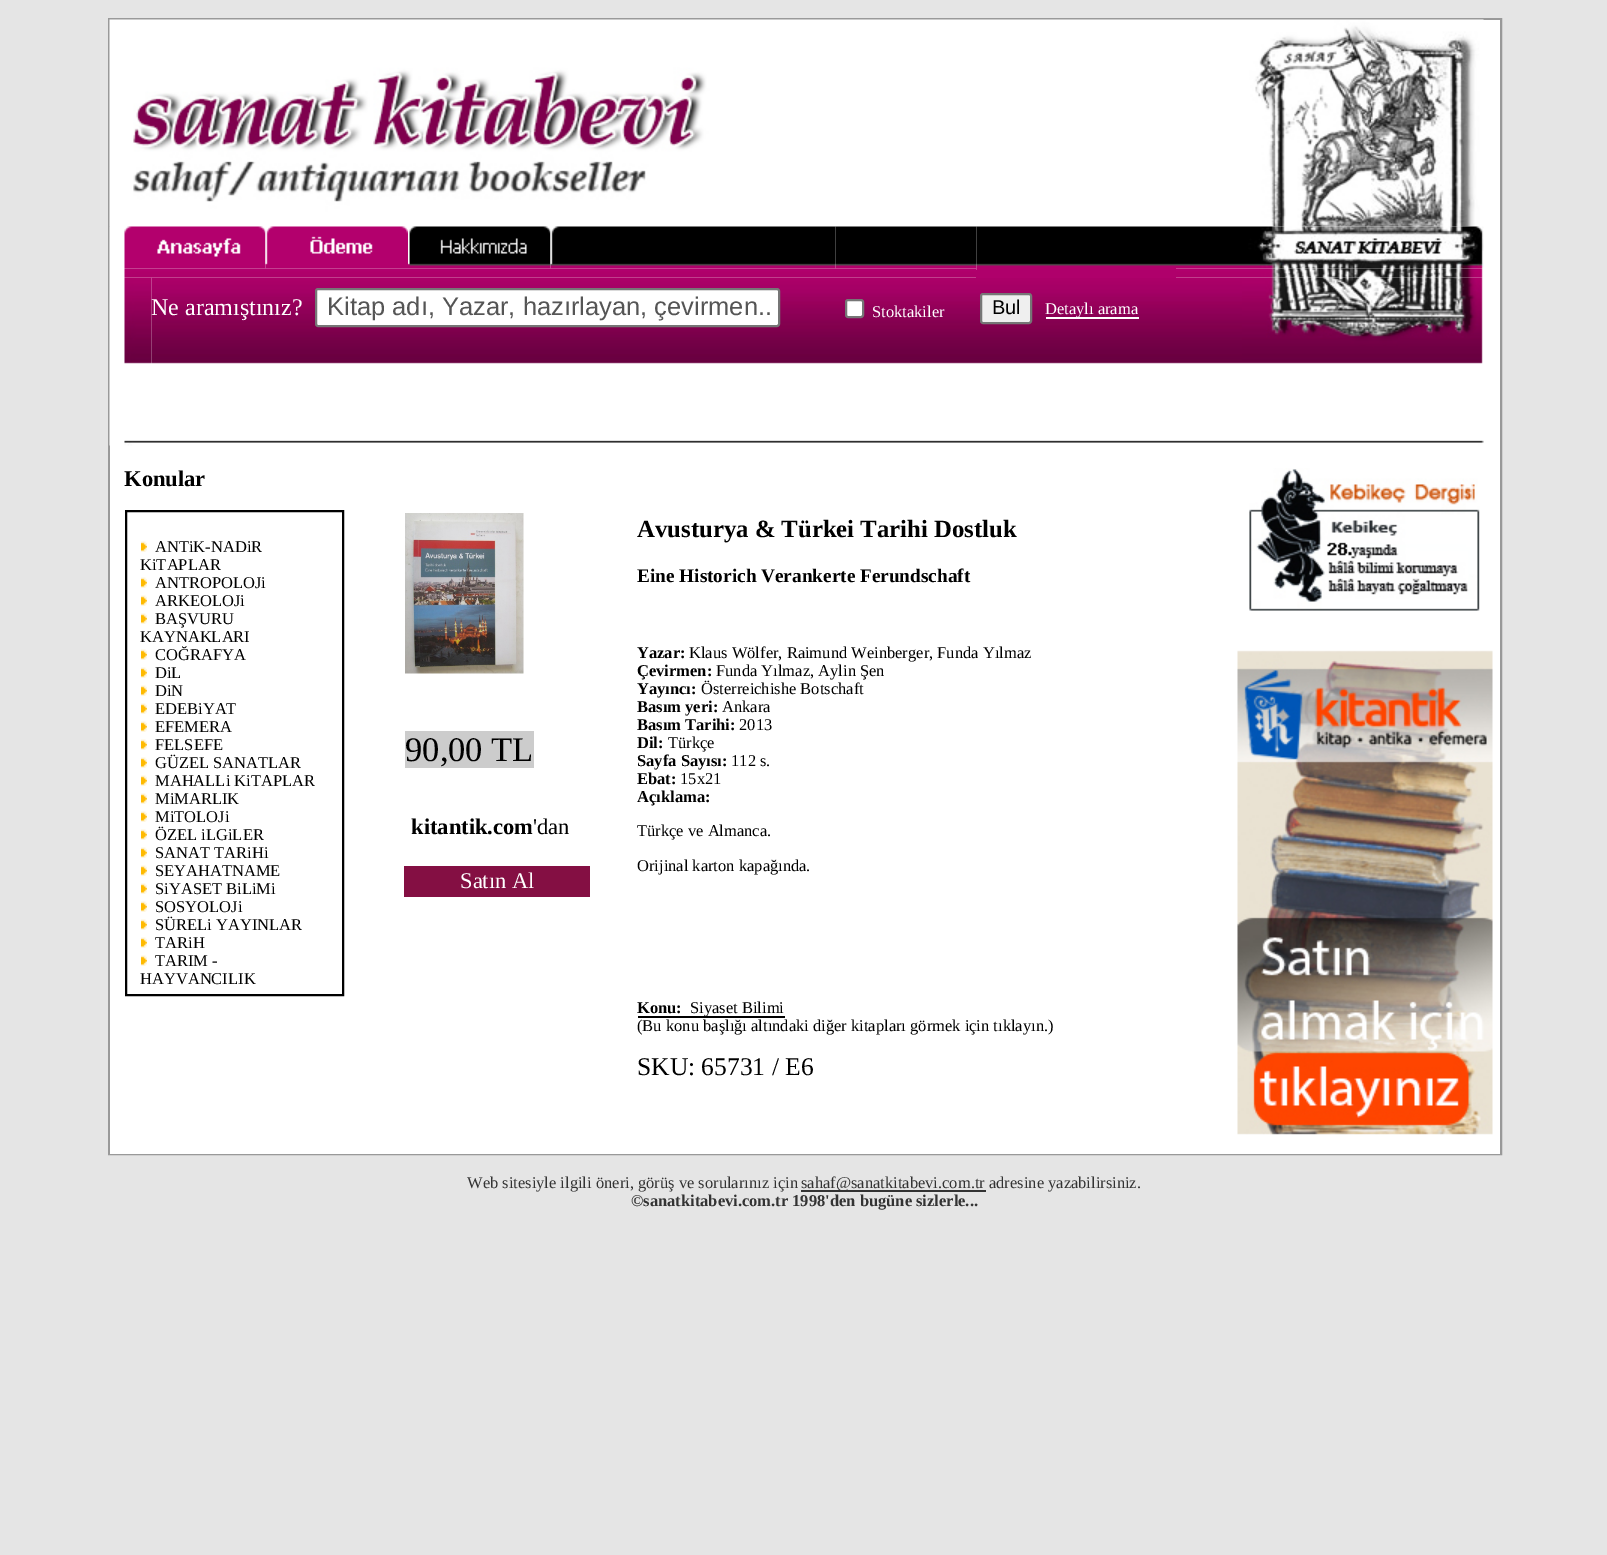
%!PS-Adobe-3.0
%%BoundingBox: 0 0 1607 1555
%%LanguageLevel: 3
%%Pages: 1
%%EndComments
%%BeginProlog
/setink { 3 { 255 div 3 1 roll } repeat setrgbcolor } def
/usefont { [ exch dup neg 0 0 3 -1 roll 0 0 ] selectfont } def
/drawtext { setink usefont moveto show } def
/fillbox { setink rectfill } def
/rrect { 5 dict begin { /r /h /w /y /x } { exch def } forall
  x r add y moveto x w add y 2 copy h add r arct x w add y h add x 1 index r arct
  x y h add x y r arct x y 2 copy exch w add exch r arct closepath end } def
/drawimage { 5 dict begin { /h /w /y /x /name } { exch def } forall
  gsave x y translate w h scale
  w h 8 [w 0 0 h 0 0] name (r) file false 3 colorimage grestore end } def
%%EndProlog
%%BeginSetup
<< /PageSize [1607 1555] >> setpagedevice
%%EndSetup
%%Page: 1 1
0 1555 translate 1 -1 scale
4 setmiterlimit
0 0 1607 1555 229 229 229 fillbox
153 153 153 setink
2 setlinewidth
109 19 1392 1135 rectstroke
110 20 1390 1134 255 255 255 fillbox
(assets/img1.rgb) 109 19 1262 208 drawimage
(assets/img2.rgb) 1371 19 113 208 drawimage
(assets/img3.rgb) 109 226 1 220 drawimage
(assets/img4.rgb) 124 226 142 43 drawimage
(assets/img5.rgb) 265 226 143 43 drawimage
(assets/img6.rgb) 408 226 143 43 drawimage
(assets/img7.rgb) 550 226 143 43 drawimage
(assets/img8.rgb) 693 226 143 43 drawimage
(assets/img9.rgb) 835 226 142 43 drawimage
(assets/img10.rgb) 976 226 200 44 drawimage
(assets/img11.rgb) 1176 226 308 43 drawimage
(assets/img15.rgb) 151 277 1091 77 drawimage
(assets/img12.rgb) 124 268 853 10 drawimage
(assets/img13.rgb) 1176 268 307 10 drawimage
976 270 200 8 175 0 107 fillbox
(assets/img14.rgb) 124 277 28 87 drawimage
(Ne aramıştınız?) 151 315 /LiberationSerif-Regular 24 255 255 255 drawtext
316 289 463 37 2 rrect gsave fill grestore
118 118 118 setink
stroke
(Kitap adı, Yazar, hazırlayan, çevirmen..) 327 315 /LiberationSans-Regular 25.5 85 85 85 drawtext
255 255 255 setink
846 300 17 17 2 rrect gsave fill grestore
118 118 118 setink
stroke
(Stoktakiler) 872 317 /LiberationSerif-Regular 16.5 255 255 255 drawtext
239 239 239 setink
981 294 50 29 2 rrect gsave fill grestore
118 118 118 setink
stroke
(Bul) 992 314 /LiberationSans-Regular 20 0 0 0 drawtext
1046 317 93 2 255 255 255 fillbox
(Detaylı arama) 1045 314 /LiberationSerif-Regular 16.5 255 255 255 drawtext
(assets/img16.rgb) 1242 277 241 87 drawimage
(assets/img17.rgb) 151 354 1091 10 drawimage
(assets/img18.rgb) 124 440 1360 6 drawimage
(Konular) 124 486 /LiberationSerif-Bold 22.5 0 0 0 drawtext
126 511 217 484 rectstroke
(assets/img19.rgb) 141 541 6 11 drawimage
(ANTiK-NADiR) 155 552 /LiberationSerif-Regular 16.5 0 0 0 drawtext
(KiTAPLAR) 140 570 /LiberationSerif-Regular 16.5 0 0 0 drawtext
(assets/img19.rgb) 141 577 6 11 drawimage
(ANTROPOLOJi) 155 588 /LiberationSerif-Regular 16.5 0 0 0 drawtext
(assets/img19.rgb) 141 595 6 11 drawimage
(ARKEOLOJi) 155 606 /LiberationSerif-Regular 16.5 0 0 0 drawtext
(assets/img19.rgb) 141 613 6 11 drawimage
(BAŞVURU) 155 624 /LiberationSerif-Regular 16.5 0 0 0 drawtext
(KAYNAKLARI) 140 642 /LiberationSerif-Regular 16.5 0 0 0 drawtext
(assets/img19.rgb) 141 649 6 11 drawimage
(COĞRAFYA) 155 660 /LiberationSerif-Regular 16.5 0 0 0 drawtext
(assets/img19.rgb) 141 667 6 11 drawimage
(DiL) 155 678 /LiberationSerif-Regular 16.5 0 0 0 drawtext
(assets/img19.rgb) 141 685 6 11 drawimage
(DiN) 155 696 /LiberationSerif-Regular 16.5 0 0 0 drawtext
(assets/img19.rgb) 141 703 6 11 drawimage
(EDEBiYAT) 155 714 /LiberationSerif-Regular 16.5 0 0 0 drawtext
(assets/img19.rgb) 141 721 6 11 drawimage
(EFEMERA) 155 732 /LiberationSerif-Regular 16.5 0 0 0 drawtext
(assets/img19.rgb) 141 739 6 11 drawimage
(FELSEFE) 155 750 /LiberationSerif-Regular 16.5 0 0 0 drawtext
(assets/img19.rgb) 141 757 6 11 drawimage
(GÜZEL SANATLAR) 155 768 /LiberationSerif-Regular 16.5 0 0 0 drawtext
(assets/img19.rgb) 141 775 6 11 drawimage
(MAHALLi KiTAPLAR) 155 786 /LiberationSerif-Regular 16.5 0 0 0 drawtext
(assets/img19.rgb) 141 793 6 11 drawimage
(MiMARLIK) 155 804 /LiberationSerif-Regular 16.5 0 0 0 drawtext
(assets/img19.rgb) 141 811 6 11 drawimage
(MiTOLOJi) 155 822 /LiberationSerif-Regular 16.5 0 0 0 drawtext
(assets/img19.rgb) 141 829 6 11 drawimage
(ÖZEL iLGiLER) 155 840 /LiberationSerif-Regular 16.5 0 0 0 drawtext
(assets/img19.rgb) 141 847 6 11 drawimage
(SANAT TARiHi) 155 858 /LiberationSerif-Regular 16.5 0 0 0 drawtext
(assets/img19.rgb) 141 865 6 11 drawimage
(SEYAHATNAME) 155 876 /LiberationSerif-Regular 16.5 0 0 0 drawtext
(assets/img19.rgb) 141 883 6 11 drawimage
(SiYASET BiLiMi) 155 894 /LiberationSerif-Regular 16.5 0 0 0 drawtext
(assets/img19.rgb) 141 901 6 11 drawimage
(SOSYOLOJi) 155 912 /LiberationSerif-Regular 16.5 0 0 0 drawtext
(assets/img19.rgb) 141 919 6 11 drawimage
(SÜRELi YAYINLAR) 155 930 /LiberationSerif-Regular 16.5 0 0 0 drawtext
(assets/img19.rgb) 141 937 6 11 drawimage
(TARiH) 155 948 /LiberationSerif-Regular 16.5 0 0 0 drawtext
(assets/img19.rgb) 141 955 6 11 drawimage
(TARIM -) 155 966 /LiberationSerif-Regular 16.5 0 0 0 drawtext
(HAYVANCILIK) 140 984 /LiberationSerif-Regular 16.5 0 0 0 drawtext
(assets/img20.rgb) 405 513 119 161 drawimage
405 731 129 37 204 204 204 fillbox
(90,00 TL) 405 761 /LiberationSerif-Regular 34.5 0 0 0 drawtext
(kitantik.com) 411 834 /LiberationSerif-Bold 22.5 0 0 0 drawtext
('dan) 533 834 /LiberationSerif-Regular 22.5 0 0 0 drawtext
404 866 186 31 132 15 67 fillbox
(Satın Al) 460 888 /LiberationSerif-Regular 22.5 255 255 255 drawtext
(Avusturya & Türkei Tarihi Dostluk) 637 537 /LiberationSerif-Bold 24.75 0 0 0 drawtext
(Eine Historich Verankerte Ferundschaft) 637 582 /LiberationSerif-Bold 19.25 0 0 0 drawtext
(Yazar:) 637 658 /LiberationSerif-Bold 16.5 0 0 0 drawtext
(Klaus Wölfer, Raimund Weinberger, Funda Yılmaz) 689 658 /LiberationSerif-Regular 16.5 0 0 0 drawtext
(Çevirmen:) 637 676 /LiberationSerif-Bold 16.5 0 0 0 drawtext
(Funda Yılmaz, Aylin Şen) 716 676 /LiberationSerif-Regular 16.5 0 0 0 drawtext
(Yayıncı:) 637 694 /LiberationSerif-Bold 16.5 0 0 0 drawtext
(Österreichishe Botschaft) 701 694 /LiberationSerif-Regular 16.5 0 0 0 drawtext
(Basım yeri:) 637 712 /LiberationSerif-Bold 16.5 0 0 0 drawtext
(Ankara) 722 712 /LiberationSerif-Regular 16.5 0 0 0 drawtext
(Basım Tarihi:) 637 730 /LiberationSerif-Bold 16.5 0 0 0 drawtext
(2013) 739 730 /LiberationSerif-Regular 16.5 0 0 0 drawtext
(Dil:) 637 748 /LiberationSerif-Bold 16.5 0 0 0 drawtext
(Türkçe) 668 748 /LiberationSerif-Regular 16.5 0 0 0 drawtext
(Sayfa Sayısı:) 637 766 /LiberationSerif-Bold 16.5 0 0 0 drawtext
(112 s.) 731 766 /LiberationSerif-Regular 16.5 0 0 0 drawtext
(Ebat:) 637 784 /LiberationSerif-Bold 16.5 0 0 0 drawtext
(15x21) 680 784 /LiberationSerif-Regular 16.5 0 0 0 drawtext
(Açıklama:) 637 802 /LiberationSerif-Bold 16.5 0 0 0 drawtext
(Türkçe ve Almanca.) 637 836 /LiberationSerif-Regular 16.5 0 0 0 drawtext
(Orijinal karton kapağında.) 637 871 /LiberationSerif-Regular 16.5 0 0 0 drawtext
(Konu:) 637 1013 /LiberationSerif-Bold 16.5 0 0 0 drawtext
638 1016 147 2 0 0 0 fillbox
(Siyaset Bilimi) 690 1013 /LiberationSerif-Regular 16.5 0 0 0 drawtext
(\(Bu konu başlığı altındaki diğer kitapları görmek için tıklayın.\)) 637 1031 /LiberationSerif-Regular 16.5 0 0 0 drawtext
(SKU: 65731 / E6) 637 1075 /LiberationSerif-Regular 25.5 0 0 0 drawtext
(assets/img21.rgb) 1249 468 231 143 drawimage
(assets/img22.rgb) 1237 650 256 485 drawimage
(Web sitesiyle ilgili öneri, görüş ve sorularınız için) 467 1188 /LiberationSerif-Regular 16.5 51 51 51 drawtext
801 1190 185 2 51 51 51 fillbox
(sahaf@sanatkitabevi.com.tr adresine yazabilirsiniz.) 801 1188 /LiberationSerif-Regular 16.5 51 51 51 drawtext
(©sanatkitabevi.com.tr 1998'den bugüne sizlerle...) 631 1206 /LiberationSerif-Bold 16.5 51 51 51 drawtext
showpage
%%EOF
